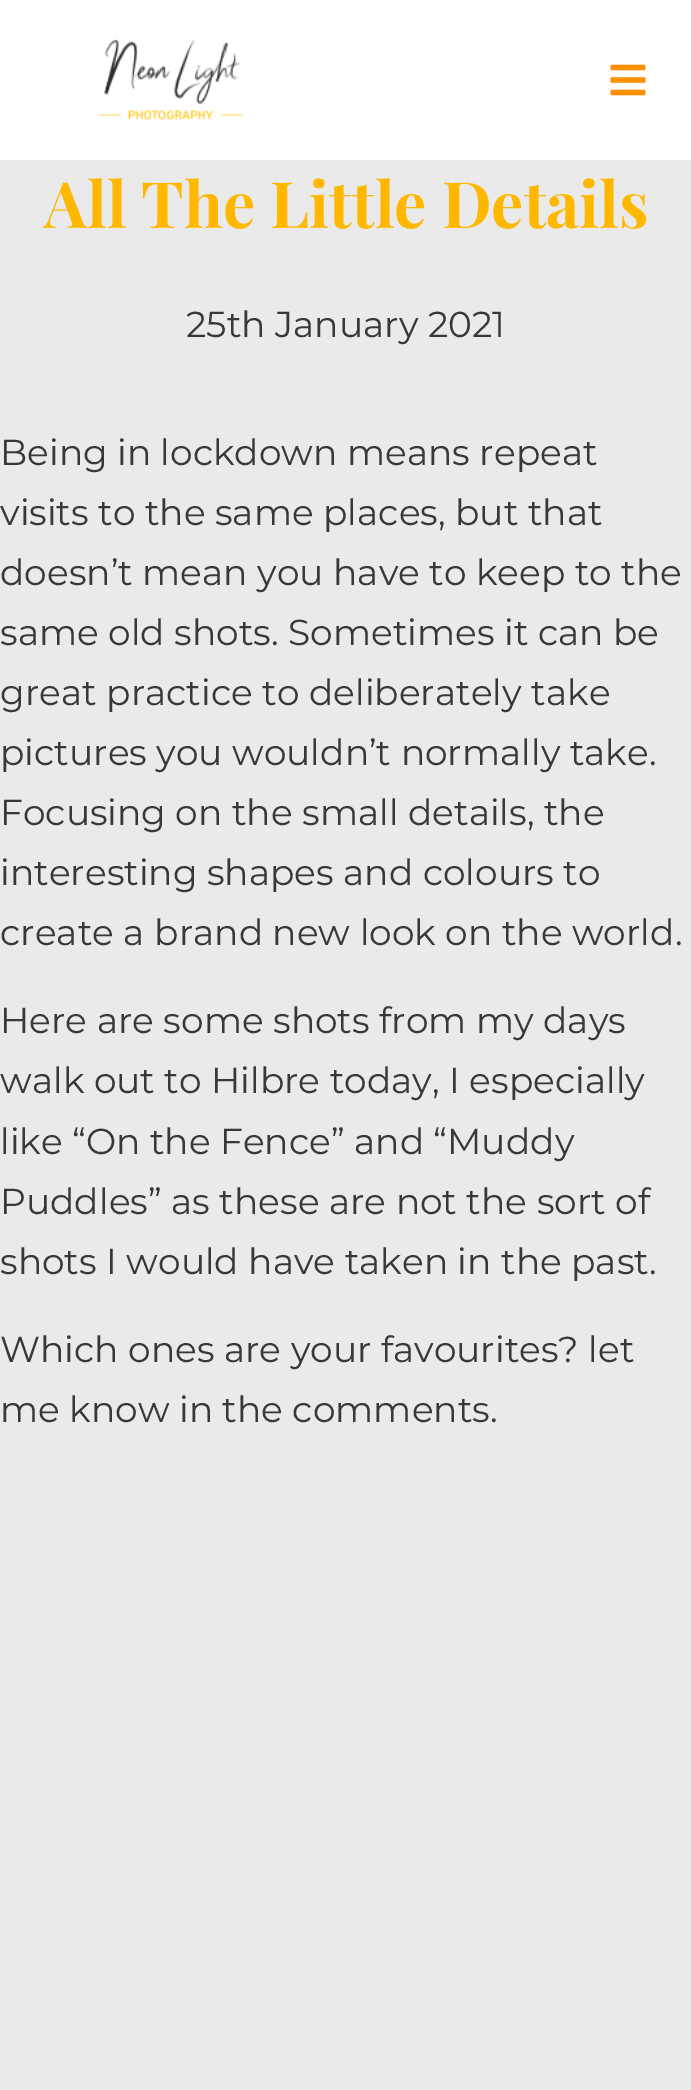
%!PS-Adobe-3.0
%%BoundingBox: 0 0 691 2090
%%LanguageLevel: 3
%%Pages: 1
%%EndComments
%%BeginProlog
/setink { 3 { 255 div 3 1 roll } repeat setrgbcolor } def
/usefont { [ exch dup neg 0 0 3 -1 roll 0 0 ] selectfont } def
/drawtext { setink usefont moveto show } def
/fillbox { setink rectfill } def
/drawimage { 5 dict begin { /h /w /y /x /name } { exch def } forall
  gsave x y translate w h scale
  w h 8 [w 0 0 h 0 0] name (r) file false 3 colorimage grestore end } def
%%EndProlog
%%BeginSetup
<< /PageSize [691 2090] >> setpagedevice
%%EndSetup
%%Page: 1 1
0 2090 translate 1 -1 scale
4 setmiterlimit
0 0 691 2090 234 234 234 fillbox
0 0 691 160 255 255 255 fillbox
(assets/img1.rgb) 98 39 146 81 drawimage
(assets/img2.rgb) 610 64 36 32 drawimage
(All The Little Details) 44 228 /PlayfairDisplay-Bold 64 255 183 0 drawtext
(25th January 2021) 186 337 /Montserrat-Regular 36 56 56 56 drawtext
(Being in lockdown means repeat) 0 465 /Montserrat-Regular 36 56 56 56 drawtext
(visits to the same places, but that) 0 525 /Montserrat-Regular 36 56 56 56 drawtext
(doesn’t mean you have to keep to the) 0 585 /Montserrat-Regular 36 56 56 56 drawtext
(same old shots. Sometimes it can be) 0 645 /Montserrat-Regular 36 56 56 56 drawtext
(great practice to deliberately take) 0 705 /Montserrat-Regular 36 56 56 56 drawtext
(pictures you wouldn’t normally take.) 0 765 /Montserrat-Regular 36 56 56 56 drawtext
(Focusing on the small details, the) 0 825 /Montserrat-Regular 36 56 56 56 drawtext
(interesting shapes and colours to) 0 885 /Montserrat-Regular 36 56 56 56 drawtext
(create a brand new look on the world.) 0 945 /Montserrat-Regular 36 56 56 56 drawtext
(Here are some shots from my days) 0 1033 /Montserrat-Regular 36 56 56 56 drawtext
(walk out to Hilbre today, I especially) 0 1093 /Montserrat-Regular 36 56 56 56 drawtext
(like “On the Fence” and “Muddy) 0 1154 /Montserrat-Regular 36 56 56 56 drawtext
(Puddles” as these are not the sort of) 0 1214 /Montserrat-Regular 36 56 56 56 drawtext
(shots I would have taken in the past.) 0 1274 /Montserrat-Regular 36 56 56 56 drawtext
(Which ones are your favourites? let) 0 1362 /Montserrat-Regular 36 56 56 56 drawtext
(me know in the comments.) 0 1422 /Montserrat-Regular 36 56 56 56 drawtext
showpage
%%EOF
